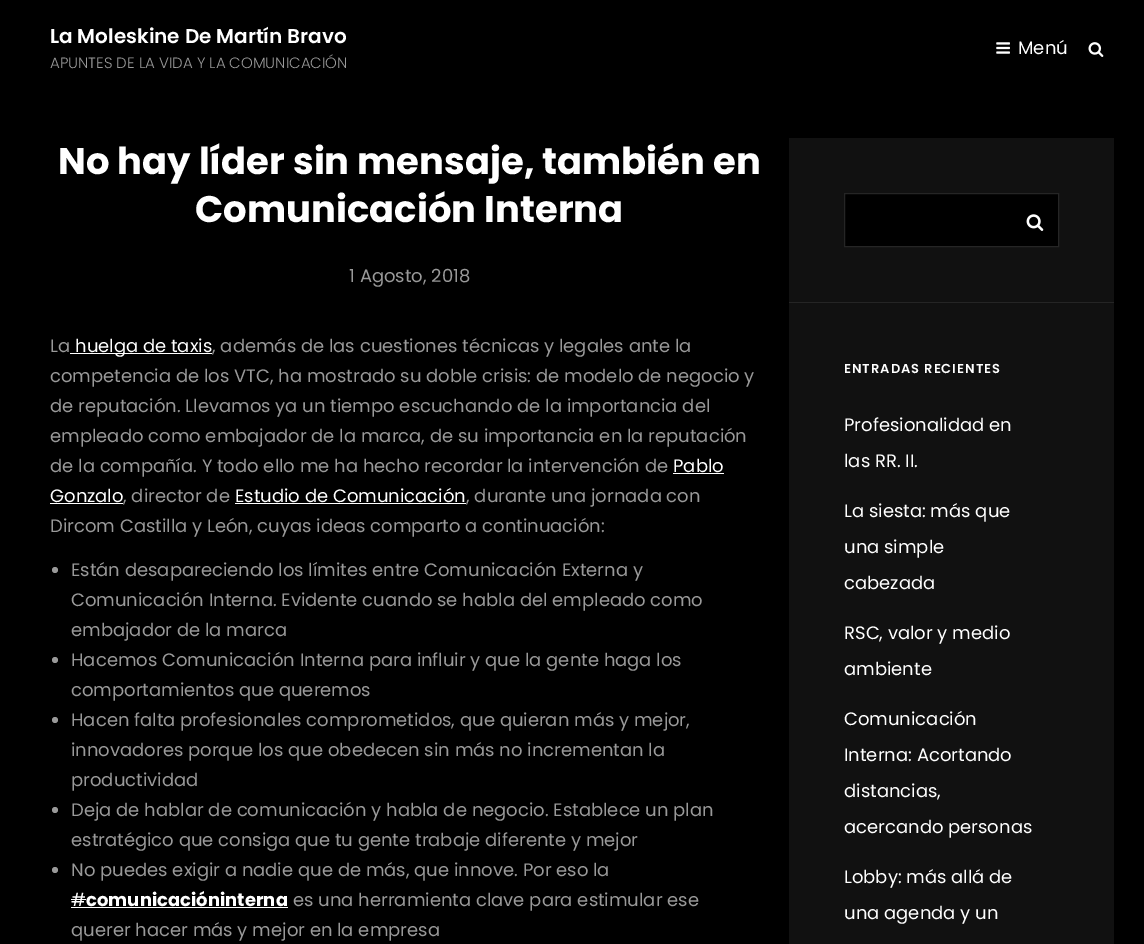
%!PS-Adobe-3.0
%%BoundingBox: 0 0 1144 944
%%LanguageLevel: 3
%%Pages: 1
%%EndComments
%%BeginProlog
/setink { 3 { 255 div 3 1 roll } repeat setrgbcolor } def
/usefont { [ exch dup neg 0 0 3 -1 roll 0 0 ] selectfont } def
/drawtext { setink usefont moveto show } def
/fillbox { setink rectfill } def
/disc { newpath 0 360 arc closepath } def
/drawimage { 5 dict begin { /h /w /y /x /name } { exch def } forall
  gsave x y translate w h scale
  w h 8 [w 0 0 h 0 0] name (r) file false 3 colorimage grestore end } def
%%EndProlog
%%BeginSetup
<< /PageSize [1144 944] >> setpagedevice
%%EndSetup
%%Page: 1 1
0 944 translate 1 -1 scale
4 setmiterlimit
0 0 1144 944 0 0 0 fillbox
(La Moleskine De Martín Bravo) 50 43 /Poppins-SemiBold 20 255 255 255 drawtext
(APUNTES DE LA VIDA Y LA COMUNICACIÓN) 50 68 /Poppins-Light 15 153 153 153 drawtext
(assets/img1.rgb) 996 42 14 12 drawimage
(Menú) 1018 54 /Poppins-Regular 18 255 255 255 drawtext
(assets/img2.rgb) 1088 42 16 15 drawimage
(No hay líder sin mensaje, también en) 58 174 /Poppins-Bold 37 255 255 255 drawtext
(Comunicación Interna) 195 222 /Poppins-Bold 37 255 255 255 drawtext
(1 Agosto, 2018) 349 282 /Poppins-Regular 18 153 153 153 drawtext
(La) 50 352 /Poppins-Regular 18 153 153 153 drawtext
70 353 142 1 255 255 255 fillbox
(huelga de taxis) 75 352 /Poppins-Regular 18 255 255 255 drawtext
(, además de las cuestiones técnicas y legales ante la) 212 352 /Poppins-Regular 18 153 153 153 drawtext
(competencia de los VTC, ha mostrado su doble crisis: de modelo de negocio y) 50 382 /Poppins-Regular 18 153 153 153 drawtext
(de reputación. Llevamos ya un tiempo escuchando de la importancia del) 50 412 /Poppins-Regular 18 153 153 153 drawtext
(empleado como embajador de la marca, de su importancia en la reputación) 50 442 /Poppins-Regular 18 153 153 153 drawtext
(de la compañía. Y todo ello me ha hecho recordar la intervención de) 50 472 /Poppins-Regular 18 153 153 153 drawtext
(Pablo) 673 472 /Poppins-Regular 18 255 255 255 drawtext
673 473 51 1 255 255 255 fillbox
(Gonzalo) 50 502 /Poppins-Regular 18 255 255 255 drawtext
50 503 73 1 255 255 255 fillbox
(, director de) 123 502 /Poppins-Regular 18 153 153 153 drawtext
(Estudio de Comunicación) 235 502 /Poppins-Regular 18 255 255 255 drawtext
235 503 231 1 255 255 255 fillbox
(, durante una jornada con) 466 502 /Poppins-Regular 18 153 153 153 drawtext
(Dircom Castilla y León, cuyas ideas comparto a continuación:) 50 532 /Poppins-Regular 18 153 153 153 drawtext
55 570 3 disc fill
(Están desapareciendo los límites entre Comunicación Externa y) 71 576 /Poppins-Regular 18 153 153 153 drawtext
(Comunicación Interna. Evidente cuando se habla del empleado como) 71 606 /Poppins-Regular 18 153 153 153 drawtext
(embajador de la marca) 71 636 /Poppins-Regular 18 153 153 153 drawtext
55 660 3 disc fill
(Hacemos Comunicación Interna para influir y que la gente haga los) 71 666 /Poppins-Regular 18 153 153 153 drawtext
(comportamientos que queremos) 71 696 /Poppins-Regular 18 153 153 153 drawtext
55 720 3 disc fill
(Hacen falta profesionales comprometidos, que quieran más y mejor,) 71 726 /Poppins-Regular 18 153 153 153 drawtext
(innovadores porque los que obedecen sin más no incrementan la) 71 756 /Poppins-Regular 18 153 153 153 drawtext
(productividad) 71 786 /Poppins-Regular 18 153 153 153 drawtext
55 810 3 disc fill
(Deja de hablar de comunicación y habla de negocio. Establece un plan) 71 816 /Poppins-Regular 18 153 153 153 drawtext
(estratégico que consiga que tu gente trabaje diferente y mejor) 71 846 /Poppins-Regular 18 153 153 153 drawtext
55 870 3 disc fill
(No puedes exigir a nadie que de más, que innove. Por eso la) 71 876 /Poppins-Regular 18 153 153 153 drawtext
(#) 71 906 /Poppins-Regular 18 255 255 255 drawtext
71 907 217 1 255 255 255 fillbox
71 899 15 1 255 255 255 fillbox
(comunicacióninterna) 86 906 /Poppins-Bold 18 255 255 255 drawtext
(es una herramienta clave para estimular ese) 293 906 /Poppins-Regular 18 153 153 153 drawtext
(querer hacer más y mejor en la empresa) 71 936 /Poppins-Regular 18 153 153 153 drawtext
789 138 325 806 17 17 17 fillbox
789 302 325 1 37 37 37 fillbox
0 0 0 setink
844.5 193.5 moveto 1058.5 193.5 lineto 1058.5 246.5 lineto 844.5 246.5 lineto closepath gsave fill grestore
37 37 37 setink
stroke
(assets/img3.rgb) 1026 214 18 17 drawimage
/Poppins-SemiBold 13 usefont
255 255 255 setink
844 373 moveto 1 0 (ENTRADAS RECIENTES) ashow
(Profesionalidad en) 844 431 /Poppins-Regular 18 255 255 255 drawtext
(las RR. II.) 844 467 /Poppins-Regular 18 255 255 255 drawtext
(La siesta: más que) 844 517 /Poppins-Regular 18 255 255 255 drawtext
(una simple) 844 553 /Poppins-Regular 18 255 255 255 drawtext
(cabezada) 844 589 /Poppins-Regular 18 255 255 255 drawtext
(RSC, valor y medio) 844 639 /Poppins-Regular 18 255 255 255 drawtext
(ambiente) 844 675 /Poppins-Regular 18 255 255 255 drawtext
(Comunicación) 844 725 /Poppins-Regular 18 255 255 255 drawtext
(Interna: Acortando) 844 761 /Poppins-Regular 18 255 255 255 drawtext
(distancias,) 844 797 /Poppins-Regular 18 255 255 255 drawtext
(acercando personas) 844 833 /Poppins-Regular 18 255 255 255 drawtext
(Lobby: más allá de) 844 883 /Poppins-Regular 18 255 255 255 drawtext
(una agenda y un) 844 919 /Poppins-Regular 18 255 255 255 drawtext
showpage
%%EOF
